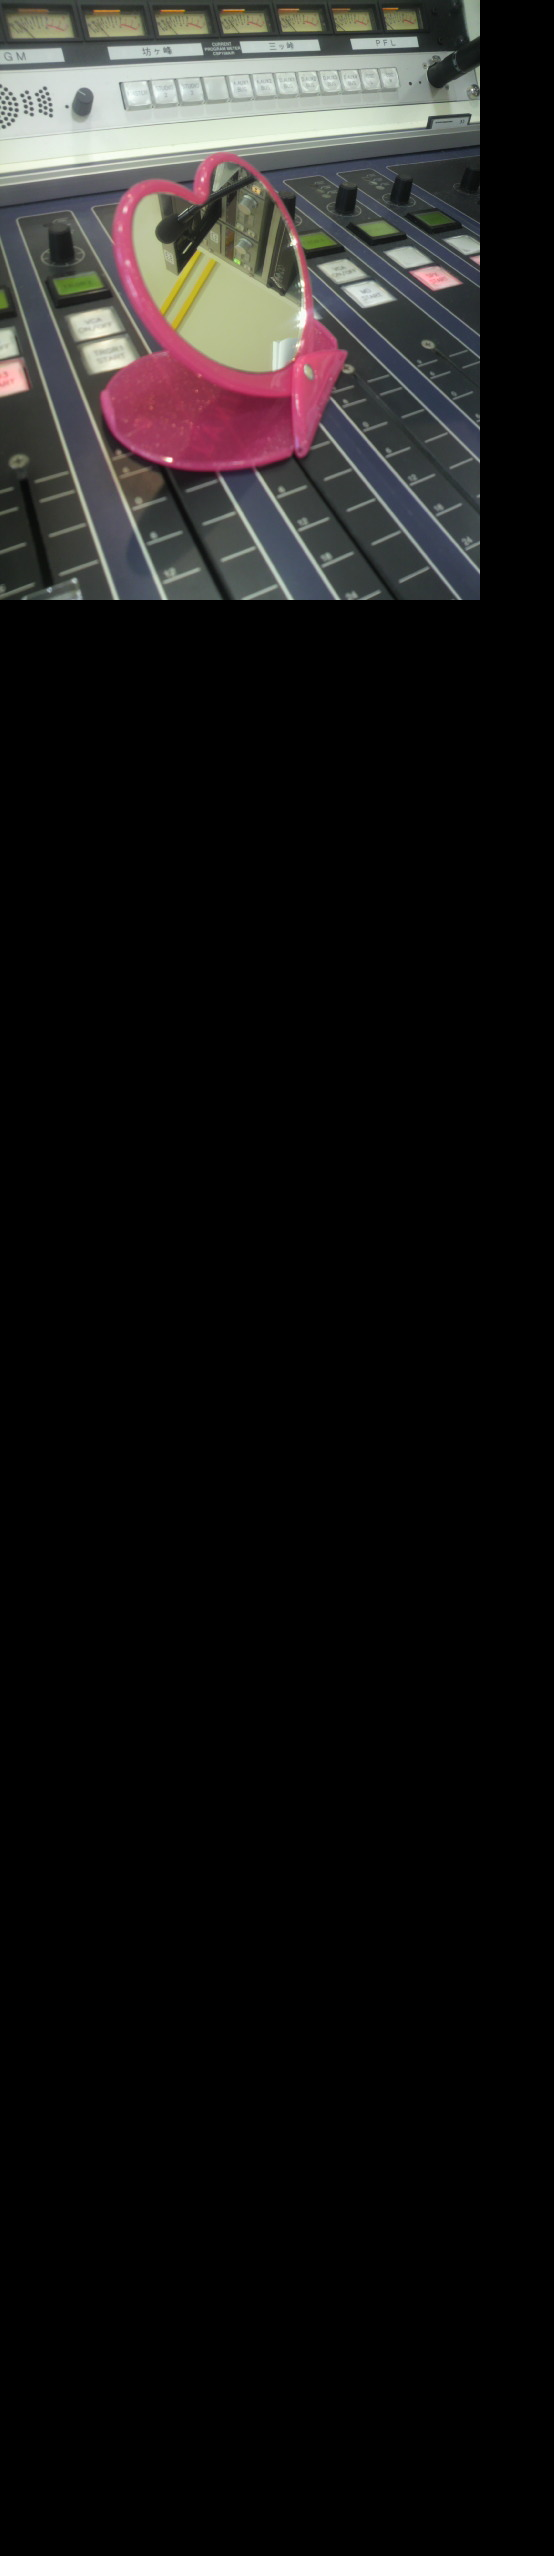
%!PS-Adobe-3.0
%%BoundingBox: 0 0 554 2556
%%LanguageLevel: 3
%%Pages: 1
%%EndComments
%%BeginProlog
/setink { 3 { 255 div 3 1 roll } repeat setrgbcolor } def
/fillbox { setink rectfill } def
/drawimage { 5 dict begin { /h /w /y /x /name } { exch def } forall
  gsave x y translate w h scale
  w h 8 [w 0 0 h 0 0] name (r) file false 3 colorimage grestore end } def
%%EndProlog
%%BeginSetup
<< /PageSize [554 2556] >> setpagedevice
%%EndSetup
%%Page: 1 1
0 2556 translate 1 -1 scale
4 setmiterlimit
0 0 554 2556 0 0 0 fillbox
(assets/img1.rgb) 0 0 480 600 drawimage
showpage
%%EOF
